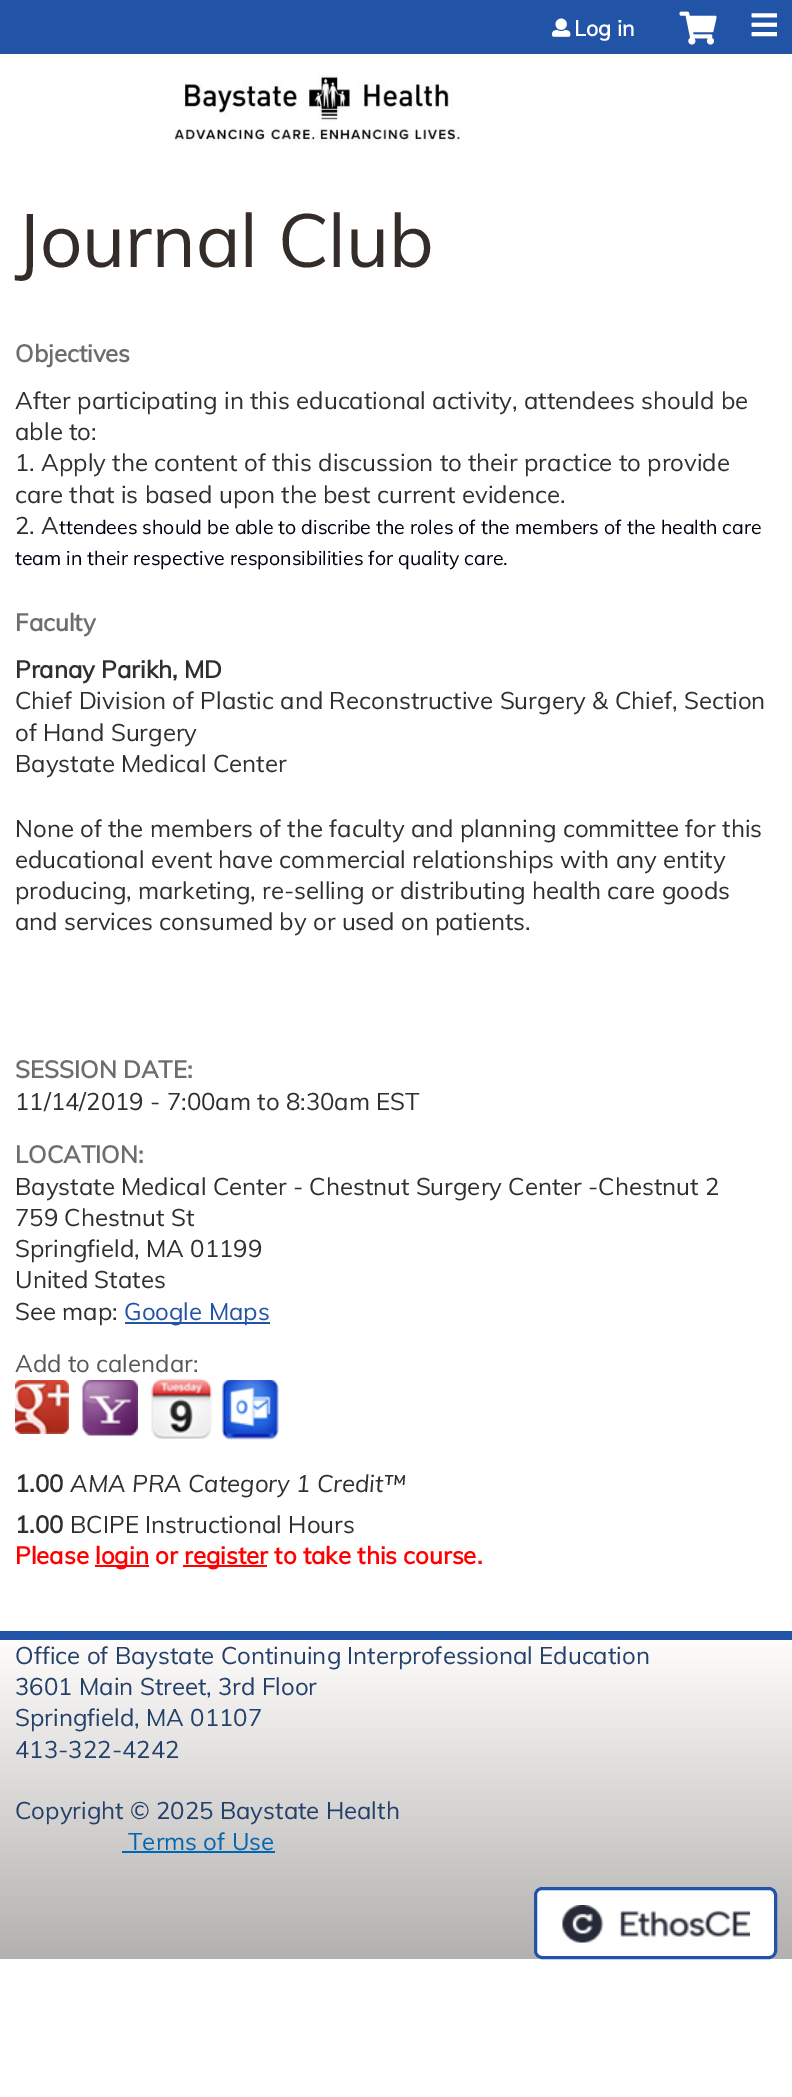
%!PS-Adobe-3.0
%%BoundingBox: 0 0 792 2097
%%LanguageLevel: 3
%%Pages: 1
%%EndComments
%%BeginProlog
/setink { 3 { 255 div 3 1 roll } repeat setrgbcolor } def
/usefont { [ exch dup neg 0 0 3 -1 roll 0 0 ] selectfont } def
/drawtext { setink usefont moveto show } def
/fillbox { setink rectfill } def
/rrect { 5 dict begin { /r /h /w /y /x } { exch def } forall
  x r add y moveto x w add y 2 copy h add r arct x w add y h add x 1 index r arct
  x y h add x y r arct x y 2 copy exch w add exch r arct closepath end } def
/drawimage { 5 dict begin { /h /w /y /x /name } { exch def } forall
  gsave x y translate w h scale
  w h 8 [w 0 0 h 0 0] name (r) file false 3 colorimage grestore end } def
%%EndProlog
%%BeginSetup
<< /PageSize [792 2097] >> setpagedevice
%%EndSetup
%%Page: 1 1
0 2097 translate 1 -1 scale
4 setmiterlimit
0 0 792 2097 255 255 255 fillbox
0 0 792 54 33 83 167 fillbox
(assets/img1.rgb) 552 18 19 19 drawimage
(Log in) 574 36 /Muli-Bold 21.5 255 255 255 drawtext
(assets/img2.rgb) 679 11 38 34 drawimage
(assets/img3.rgb) 751 13 26 24 drawimage
(assets/img4.rgb) 174 75 286 69 drawimage
(Journal Club) 15 267 /Muli-Regular 74.5 52 44 41 drawtext
(Objectives) 15 362 /Muli-Bold 24 109 109 109 drawtext
(After participating in this educational activity, attendees should be) 15 409 /Muli-Regular 24 47 47 47 drawtext
(able to:) 15 440 /Muli-Regular 24 47 47 47 drawtext
(1. Apply the content of this discussion to their practice to provide) 15 471 /Muli-Regular 24 47 47 47 drawtext
(care that is based upon the best current evidence.) 15 503 /Muli-Regular 24 47 47 47 drawtext
(2. A) 15 534 /Muli-Regular 24 47 47 47 drawtext
(ttendees should be able to discribe the roles of the members of the health care) 59 534 /Muli-Regular 19.5 0 0 17 drawtext
(team in their respective responsibilities for quality care.) 15 565 /Muli-Regular 19.5 0 0 17 drawtext
(Faculty) 15 631 /Muli-Bold 24 109 109 109 drawtext
(Pranay Parikh, MD) 15 678 /Muli-Bold 24 47 47 47 drawtext
(Chief Division of Plastic and Reconstructive Surgery & Chief, Section) 15 709 /Muli-Regular 24 47 47 47 drawtext
(of Hand Surgery) 15 741 /Muli-Regular 24 47 47 47 drawtext
(Baystate Medical Center) 15 772 /Muli-Regular 24 47 47 47 drawtext
(None of the members of the faculty and planning committee for this) 15 837 /Muli-Regular 24 47 47 47 drawtext
(educational event have commercial relationships with any entity) 15 868 /Muli-Regular 24 47 47 47 drawtext
(producing, marketing, re-selling or distributing health care goods) 15 899 /Muli-Regular 24 47 47 47 drawtext
(and services consumed by or used on patients.) 15 930 /Muli-Regular 24 47 47 47 drawtext
(SESSION DATE:) 15 1078 /Muli-Bold 24 109 109 109 drawtext
(11/14/2019 - 7:00am to 8:30am EST) 15 1110 /Muli-Regular 24 47 47 47 drawtext
(LOCATION:) 15 1163 /Muli-Bold 24 109 109 109 drawtext
(Baystate Medical Center - Chestnut Surgery Center -Chestnut 2) 15 1195 /Muli-Regular 24 47 47 47 drawtext
(759 Chestnut St) 15 1226 /Muli-Regular 24 47 47 47 drawtext
(Springfield, MA 01199) 15 1257 /Muli-Regular 24 47 47 47 drawtext
(United States) 15 1288 /Muli-Regular 24 47 47 47 drawtext
(See map:) 15 1320 /Muli-Regular 24 47 47 47 drawtext
125 1322 145 2 33 83 167 fillbox
(Google Maps) 124 1320 /Muli-Regular 24 33 83 167 drawtext
(Add to calendar:) 15 1372 /Muli-Regular 24 87 87 87 drawtext
(assets/img5.rgb) 15 1380 54 54 drawimage
(assets/img6.rgb) 82 1380 56 56 drawimage
(assets/img7.rgb) 151 1378 61 61 drawimage
(assets/img8.rgb) 222 1380 57 60 drawimage
(1.00) 15 1492 /Muli-Bold 24 47 47 47 drawtext
(AMA PRA Category 1 Credit™) 70 1492 /Muli-Italic 24 47 47 47 drawtext
(1.00) 15 1533 /Muli-Bold 24 47 47 47 drawtext
(BCIPE Instructional Hours) 70 1533 /Muli-Regular 24 47 47 47 drawtext
(Please) 15 1564 /Muli-Bold 24 255 0 0 drawtext
95 1565 54 2 255 0 0 fillbox
(login or) 95 1564 /Muli-Bold 24 255 0 0 drawtext
183 1565 84 2 255 0 0 fillbox
(register to take this course.) 184 1564 /Muli-Bold 24 255 0 0 drawtext
gsave 0 1640 moveto 792 1640 lineto 792 1959 lineto 0 1959 lineto closepath clip newpath
<< /ShadingType 2 /ColorSpace /DeviceRGB /Coords [396 1959 396 1640] /Extend [true true] /Function << /FunctionType 2 /Domain [0 1] /C0 [0.702 0.69 0.69] /C1 [1 0.988 0.988] /N 1 >> >> shfill grestore
0 1631 792 9 33 83 167 fillbox
(Office of Baystate Continuing Interprofessional Education) 15 1664 /Muli-Regular 24 34 64 105 drawtext
(3601 Main Street, 3rd Floor) 15 1695 /Muli-Regular 24 34 64 105 drawtext
(Springfield, MA 01107) 15 1726 /Muli-Regular 24 34 64 105 drawtext
(413-322-4242) 15 1758 /Muli-Regular 24 34 64 105 drawtext
(Copyright © 2025 Baystate Health) 15 1819 /Muli-Regular 24 34 64 105 drawtext
(Terms of Use) 128 1850 /Muli-Regular 24 2 103 179 drawtext
122 1851 153 2 2 103 179 fillbox
255 255 255 setink
534 1887 243 72 8 rrect fill
(assets/img9.rgb) 562 1905 188 38 drawimage
33 83 167 setink
3 setlinewidth
535.5 1888.5 240 69 6.5 rrect stroke
showpage
%%EOF
